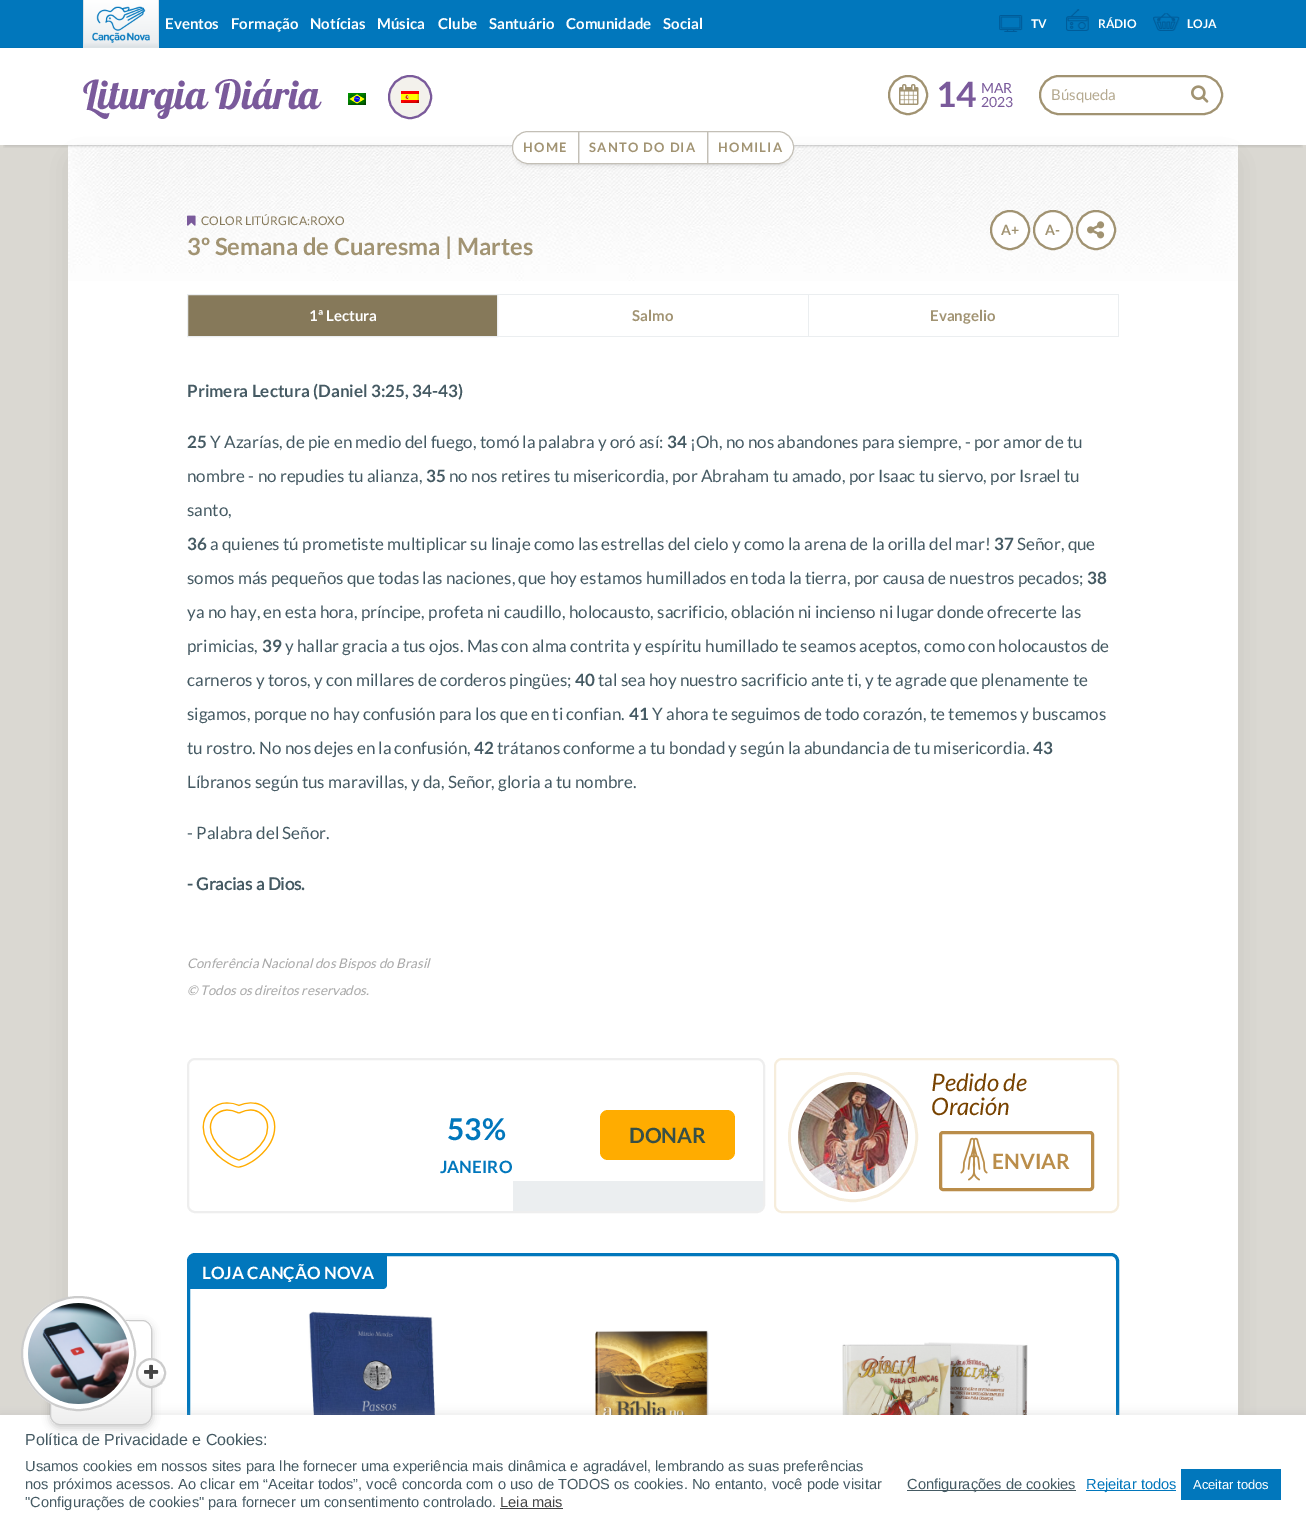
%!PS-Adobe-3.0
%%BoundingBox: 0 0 1306 1525
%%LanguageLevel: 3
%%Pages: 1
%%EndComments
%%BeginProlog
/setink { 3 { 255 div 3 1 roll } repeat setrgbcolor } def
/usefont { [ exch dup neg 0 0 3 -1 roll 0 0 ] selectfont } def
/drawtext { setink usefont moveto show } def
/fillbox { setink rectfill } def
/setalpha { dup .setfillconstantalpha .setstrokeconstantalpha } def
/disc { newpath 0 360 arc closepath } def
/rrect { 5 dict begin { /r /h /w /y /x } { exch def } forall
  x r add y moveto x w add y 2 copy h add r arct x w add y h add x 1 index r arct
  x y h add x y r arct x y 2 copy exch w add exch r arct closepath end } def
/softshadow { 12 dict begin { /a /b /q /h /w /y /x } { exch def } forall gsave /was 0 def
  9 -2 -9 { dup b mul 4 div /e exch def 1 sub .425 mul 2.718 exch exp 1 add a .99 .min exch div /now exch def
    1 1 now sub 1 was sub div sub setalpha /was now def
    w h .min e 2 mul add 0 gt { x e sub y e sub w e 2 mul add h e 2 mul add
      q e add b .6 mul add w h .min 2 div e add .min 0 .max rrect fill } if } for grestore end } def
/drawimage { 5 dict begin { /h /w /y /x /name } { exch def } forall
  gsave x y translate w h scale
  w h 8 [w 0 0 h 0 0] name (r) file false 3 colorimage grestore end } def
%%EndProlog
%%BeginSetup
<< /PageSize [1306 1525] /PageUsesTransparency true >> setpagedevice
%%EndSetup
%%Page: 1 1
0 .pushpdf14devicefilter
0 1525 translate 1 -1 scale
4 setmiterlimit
0 0 1306 1525 255 255 255 fillbox
0 145 1306 1270 218 216 210 fillbox
0 0 0 setink
78 165 1150 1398 0 12.5 0.2 softshadow
(assets/img9.rgb) 68 145 1170 136 drawimage
gsave
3 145 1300 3 rectclip
5 55 1296 90 0 2.5 0.2 softshadow
grestore
0 0 1306 47 1 119 188 fillbox
0 47 1306 1 1 115 182 fillbox
gsave 84 0 moveto 158 0 lineto 158 47 lineto 84 47 lineto closepath clip newpath
<< /ShadingType 2 /ColorSpace /DeviceRGB /Coords [121 0 121 47] /Extend [true true] /Function << /FunctionType 3 /Domain [0 1] /Functions [<< /FunctionType 2 /Domain [0 1] /C0 [1 1 1] /C1 [0.922 0.933 0.941] /N 1 >> << /FunctionType 2 /Domain [0 1] /C0 [0.922 0.933 0.941] /C1 [0.863 0.886 0.898] /N 1 >>] /Bounds [0.9] /Encode [0 1 0 1] >> >> shfill grestore
158 0 1 48 220 226 229 fillbox
83 47 76 1 220 226 229 fillbox
83 0 1 48 220 226 229 fillbox
(assets/img1.rgb) 92 6 58 37 drawimage
(Eventos) 165 29 /Lato-Bold 15 255 255 255 drawtext
(Formação) 231 29 /Lato-Bold 15 255 255 255 drawtext
(Notícias) 310 29 /Lato-Bold 15 255 255 255 drawtext
(Música) 377 29 /Lato-Bold 15 255 255 255 drawtext
(Clube) 438 29 /Lato-Bold 15 255 255 255 drawtext
(Santuário) 489 29 /Lato-Bold 15 255 255 255 drawtext
(Comunidade) 566 29 /Lato-Bold 15 255 255 255 drawtext
(Social) 663 29 /Lato-Bold 15 255 255 255 drawtext
(assets/img2.rgb) 999 15 24 17 drawimage
(TV) 1031 28 /Lato-Bold 12 255 255 255 drawtext
(assets/img3.rgb) 1066 9 23 22 drawimage
(RÁDIO) 1098 28 /Lato-Bold 12 255 255 255 drawtext
(assets/img4.rgb) 1153 13 27 18 drawimage
(LOJA) 1187 28 /Lato-Bold 12 255 255 255 drawtext
(Liturgia Diária) 83 109 /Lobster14-Regular 40 122 90 155 drawtext
(assets/img5.rgb) 348 93 18 12 drawimage
243 241 236 setink
410 97 22 disc fill
(assets/img6.rgb) 401 91 18 12 drawimage
122 90 155 setink
2 setlinewidth
410 97 21 disc stroke
161 147 114 setink
908 95 19 disc stroke
(assets/img7.rgb) 899 84 20 21 drawimage
(14) 936 107 /Lato-Bold 35 122 90 155 drawtext
(MAR) 981 93 /Lato-Regular 14 122 90 155 drawtext
(2023) 981 107 /Lato-Regular 14 122 90 155 drawtext
161 147 114 setink
1040 76 182 38 19 rrect stroke
(Búsqueda) 1051 100 /Lato-Regular 15 181 170 145 drawtext
(assets/img8.rgb) 1191 85 18 18 drawimage
0 0 0 setink
517 141 272 23 11 2.5 0.2 softshadow
255 255 255 setink
512 131 282 33 16 rrect fill
195 191 182 setink
1 setlinewidth
528 131.5 moveto 578.5 131.5 lineto 578.5 163.5 lineto 528 163.5 lineto 519.5 163.5 512.5 156.5 512.5 148 curveto 512.5 147 lineto 512.5 138.5 519.5 131.5 528 131.5 curveto closepath stroke
/Lato-Bold 13 usefont
161 147 114 setink
523 152 moveto 1.25 0 (HOME) ashow
195 191 182 setink
578.5 131.5 129 32 rectstroke
161 147 114 setink
589 152 moveto 1.25 0 (SANTO DO DIA) ashow
195 191 182 setink
707.5 131.5 moveto 778 131.5 lineto 786.5 131.5 793.5 138.5 793.5 147 curveto 793.5 148 lineto 793.5 156.5 786.5 163.5 778 163.5 curveto 707.5 163.5 lineto closepath stroke
161 147 114 setink
718 152 moveto 1.25 0 (HOMILIA) ashow
68 281 1170 1134 255 255 255 fillbox
(assets/img10.rgb) 187 215 9 11 drawimage
(COLOR LITÚRGICA:ROXO) 201 225 /Lato-Regular 12 134 121 90 drawtext
255 255 255 setink
1010 230 19 disc gsave fill grestore
161 147 114 setink
2 setlinewidth
stroke
(A+) 1001 235 /Lato-Bold 14 161 147 114 drawtext
255 255 255 setink
1053 230 19 disc gsave fill grestore
161 147 114 setink
stroke
(A-) 1045 235 /Lato-Bold 14 161 147 114 drawtext
255 255 255 setink
1096 230 19 disc gsave fill grestore
161 147 114 setink
stroke
(assets/img11.rgb) 1087 221 18 18 drawimage
(3º Semana de Cuaresma | Martes) 187 255 /Lato-Bold 23.75 161 147 114 drawtext
134 121 90 setink
187.5 294.5 moveto 497.5 294.5 lineto 497.5 336.5 lineto 187.5 336.5 lineto closepath gsave fill grestore
235 238 240 setink
1 setlinewidth
stroke
(1ª Lectura) 309 321 /Lato-Bold 15 255 255 255 drawtext
498 294 621 1 235 238 240 fillbox
808 294 1 43 235 238 240 fillbox
498 336 311 1 235 238 240 fillbox
(Salmo) 632 321 /Lato-Bold 15 161 147 114 drawtext
1118 294 1 43 235 238 240 fillbox
809 336 310 1 235 238 240 fillbox
(Evangelio) 930 321 /Lato-Bold 15 161 147 114 drawtext
(Primera Lectura \(Daniel 3:25, 34-43\)) 187 397 /Lato-Bold 17 69 90 99 drawtext
(25) 187 448 /Lato-Bold 17 69 90 99 drawtext
(Y Azarías, de pie en medio del fuego, tomó la palabra y oró así:) 210 448 /Lato-Regular 17 69 90 99 drawtext
(34) 667 448 /Lato-Bold 17 69 90 99 drawtext
(¡Oh, no nos abandones para siempre, - por amor de tu) 690 448 /Lato-Regular 17 69 90 99 drawtext
(nombre - no repudies tu alianza,) 187 482 /Lato-Regular 17 69 90 99 drawtext
(35) 426 482 /Lato-Bold 17 69 90 99 drawtext
(no nos retires tu misericordia, por Abraham tu amado, por Isaac tu siervo, por Israel tu) 449 482 /Lato-Regular 17 69 90 99 drawtext
(santo,) 187 516 /Lato-Regular 17 69 90 99 drawtext
(36) 187 550 /Lato-Bold 17 69 90 99 drawtext
(a quienes tú prometiste multiplicar su linaje como las estrellas del cielo y como la arena de la orilla del mar!) 210 550 /Lato-Regular 17 69 90 99 drawtext
(37) 994 550 /Lato-Bold 17 69 90 99 drawtext
(Señor, que) 1017 550 /Lato-Regular 17 69 90 99 drawtext
(somos más pequeños que todas las naciones, que hoy estamos humillados en toda la tierra, por causa de nuestros pecados;) 187 584 /Lato-Regular 17 69 90 99 drawtext
(38) 1087 584 /Lato-Bold 17 69 90 99 drawtext
(ya no hay, en esta hora, príncipe, profeta ni caudillo, holocausto, sacrificio, oblación ni incienso ni lugar donde ofrecerte las) 187 618 /Lato-Regular 17 69 90 99 drawtext
(primicias,) 187 652 /Lato-Regular 17 69 90 99 drawtext
(39) 262 652 /Lato-Bold 17 69 90 99 drawtext
(y hallar gracia a tus ojos. Mas con alma contrita y espíritu humillado te seamos aceptos, como con holocaustos de) 285 652 /Lato-Regular 17 69 90 99 drawtext
(carneros y toros, y con millares de corderos pingües;) 187 686 /Lato-Regular 17 69 90 99 drawtext
(40) 575 686 /Lato-Bold 17 69 90 99 drawtext
(tal sea hoy nuestro sacrificio ante ti, y te agrade que plenamente te) 598 686 /Lato-Regular 17 69 90 99 drawtext
(sigamos, porque no hay confusión para los que en ti confian.) 187 720 /Lato-Regular 17 69 90 99 drawtext
(41) 629 720 /Lato-Bold 17 69 90 99 drawtext
(Y ahora te seguimos de todo corazón, te tememos y buscamos) 652 720 /Lato-Regular 17 69 90 99 drawtext
(tu rostro. No nos dejes en la confusión,) 187 754 /Lato-Regular 17 69 90 99 drawtext
(42) 474 754 /Lato-Bold 17 69 90 99 drawtext
(trátanos conforme a tu bondad y según la abundancia de tu misericordia.) 497 754 /Lato-Regular 17 69 90 99 drawtext
(43) 1033 754 /Lato-Bold 17 69 90 99 drawtext
(Líbranos según tus maravillas, y da, Señor, gloria a tu nombre.) 187 788 /Lato-Regular 17 69 90 99 drawtext
(- Palabra del Señor.) 187 839 /Lato-Regular 17 69 90 99 drawtext
(- Gracias a Dios.) 187 890 /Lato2-Bold 17 69 90 99 drawtext
(Conferência Nacional dos Bispos do Brasil) 187 968 /Lato-Italic 13.3 167 167 167 drawtext
(© Todos os direitos reservados.) 187 995 /Lato-Italic 13.3 167 167 167 drawtext
238 238 238 setink
2 setlinewidth
188 1059 576 153 7 rrect stroke
(assets/img12.rgb) 202 1102 74 66 drawimage
(53%) 447 1140 /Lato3-Bold 30 1 119 188 drawtext
(JANEIRO) 440 1173 /Lato3-Bold 17 1 119 188 drawtext
255 172 0 setink
600 1110 135 50 8 rrect fill
(DONAR) 629 1143 /Lato3-Bold 21 55 79 70 drawtext
235 238 240 setink
513 1181 moveto 763 1181 lineto 763 1205 lineto 763 1208.5 760.5 1211 757 1211 curveto 513 1211 lineto closepath fill
246 237 220 setink
775 1059 343 153 7 rrect stroke
3 setlinewidth
853 1137 63.5 disc stroke
255 255 255 setink
7 setlinewidth
853 1137 58.5 disc stroke
(assets/img13.rgb) 798 1082 110 110 drawimage
(Pedido de) 931 1091 /Lato2-Italic 24 119 66 0 drawtext
(Oración) 931 1115 /Lato2-Italic 24 119 66 0 drawtext
186 141 74 setink
3 setlinewidth
940.5 1132.5 152 57 2.5 rrect stroke
(assets/img14.rgb) 960 1137 28 44 drawimage
(ENVIAR) 992 1169 /Lato-Bold 21 186 141 74 drawtext
1 119 188 setink
188.5 1254.5 929 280 6.5 rrect stroke
190 1256 moveto 387 1256 lineto 387 1285 lineto 387 1287 385 1289 383 1289 curveto 190 1289 lineto closepath fill
(LOJA CANÇÃO NOVA) 202 1279 /Lato-Bold 17 255 255 255 drawtext
(assets/img15.rgb) 284 1311 192 104 drawimage
(assets/img16.rgb) 595 1330 114 85 drawimage
(assets/img17.rgb) 836 1342 204 73 drawimage
172 171 171 setink
0 1414 1306 110 0 5 0.3 softshadow
0 1415 1306 110 255 255 255 fillbox
0 0 0 setink
50 1323 102 105 10 4 0.2 softshadow
gsave
50 1320 102 105 10 rrect clip newpath
gsave 50 1321 moveto 152 1321 lineto 152 1424 lineto 50 1424 lineto closepath clip newpath
<< /ShadingType 2 /ColorSpace /DeviceRGB /Coords [101 1321 101 1424] /Extend [true true] /Function << /FunctionType 3 /Domain [0 1] /Functions [<< /FunctionType 2 /Domain [0 1] /C0 [1 1 1] /C1 [1 1 1] /N 1 >> << /FunctionType 2 /Domain [0 1] /C0 [1 1 1] /C1 [0.933 0.933 0.933] /N 1 >>] /Bounds [0.5] /Encode [0 1 0 1] >> >> shfill grestore
grestore
204 204 204 setink
1 setlinewidth
50.5 1320.5 101 104 9.5 rrect stroke
255 255 255 setink
78.5 1353.5 56.5 disc gsave fill grestore
204 204 204 setink
2 setlinewidth
stroke
(assets/img18.rgb) 28 1303 101 101 drawimage
gsave
136 1358 30 30 15 rrect clip newpath
gsave 136 1360 moveto 166 1360 lineto 166 1386 lineto 136 1386 lineto closepath clip newpath
<< /ShadingType 2 /ColorSpace /DeviceRGB /Coords [151 1360 151 1386] /Extend [true true] /Function << /FunctionType 3 /Domain [0 1] /Functions [<< /FunctionType 2 /Domain [0 1] /C0 [1 1 1] /C1 [1 1 1] /N 1 >> << /FunctionType 2 /Domain [0 1] /C0 [1 1 1] /C1 [0.933 0.933 0.933] /N 1 >>] /Bounds [0.5] /Encode [0 1 0 1] >> >> shfill grestore
grestore
151 1373 14 disc stroke
(assets/img19.rgb) 144 1364 15 15 drawimage
(Política de Privacidade e Cookies:) 25 1445 /LiberationSans-Regular 16 69 90 99 drawtext
(Usamos cookies em nossos sites para lhe fornecer uma experiência mais dinâmica e agradável, lembrando as suas preferências) 25 1471 /LiberationSans-Regular 14.67 69 90 99 drawtext
(nos próximos acessos. Ao clicar em “Aceitar todos”, você concorda com o uso de TODOS os cookies. No entanto, você pode visitar) 25 1489 /LiberationSans-Regular 14.67 69 90 99 drawtext
("Configurações de cookies" para fornecer um consentimento controlado.) 25 1507 /LiberationSans-Regular 14.67 69 90 99 drawtext
(Leia mais) 500 1507 /LiberationSans-Regular 14.67 68 68 68 drawtext
500 1508 63 1 68 68 68 fillbox
907 1490 169 1 69 90 99 fillbox
(Configurações de cookies) 907 1489 /LiberationSans-Regular 14.67 69 90 99 drawtext
1086 1490 90 1 1 119 188 fillbox
(Rejeitar todos) 1086 1489 /LiberationSans-Regular 14.67 1 119 188 drawtext
1181 1469 100 31 1 119 188 fillbox
(Aceitar todos) 1193 1489 /LiberationSans-Regular 13 255 255 255 drawtext
.poppdf14devicefilter showpage
%%EOF
